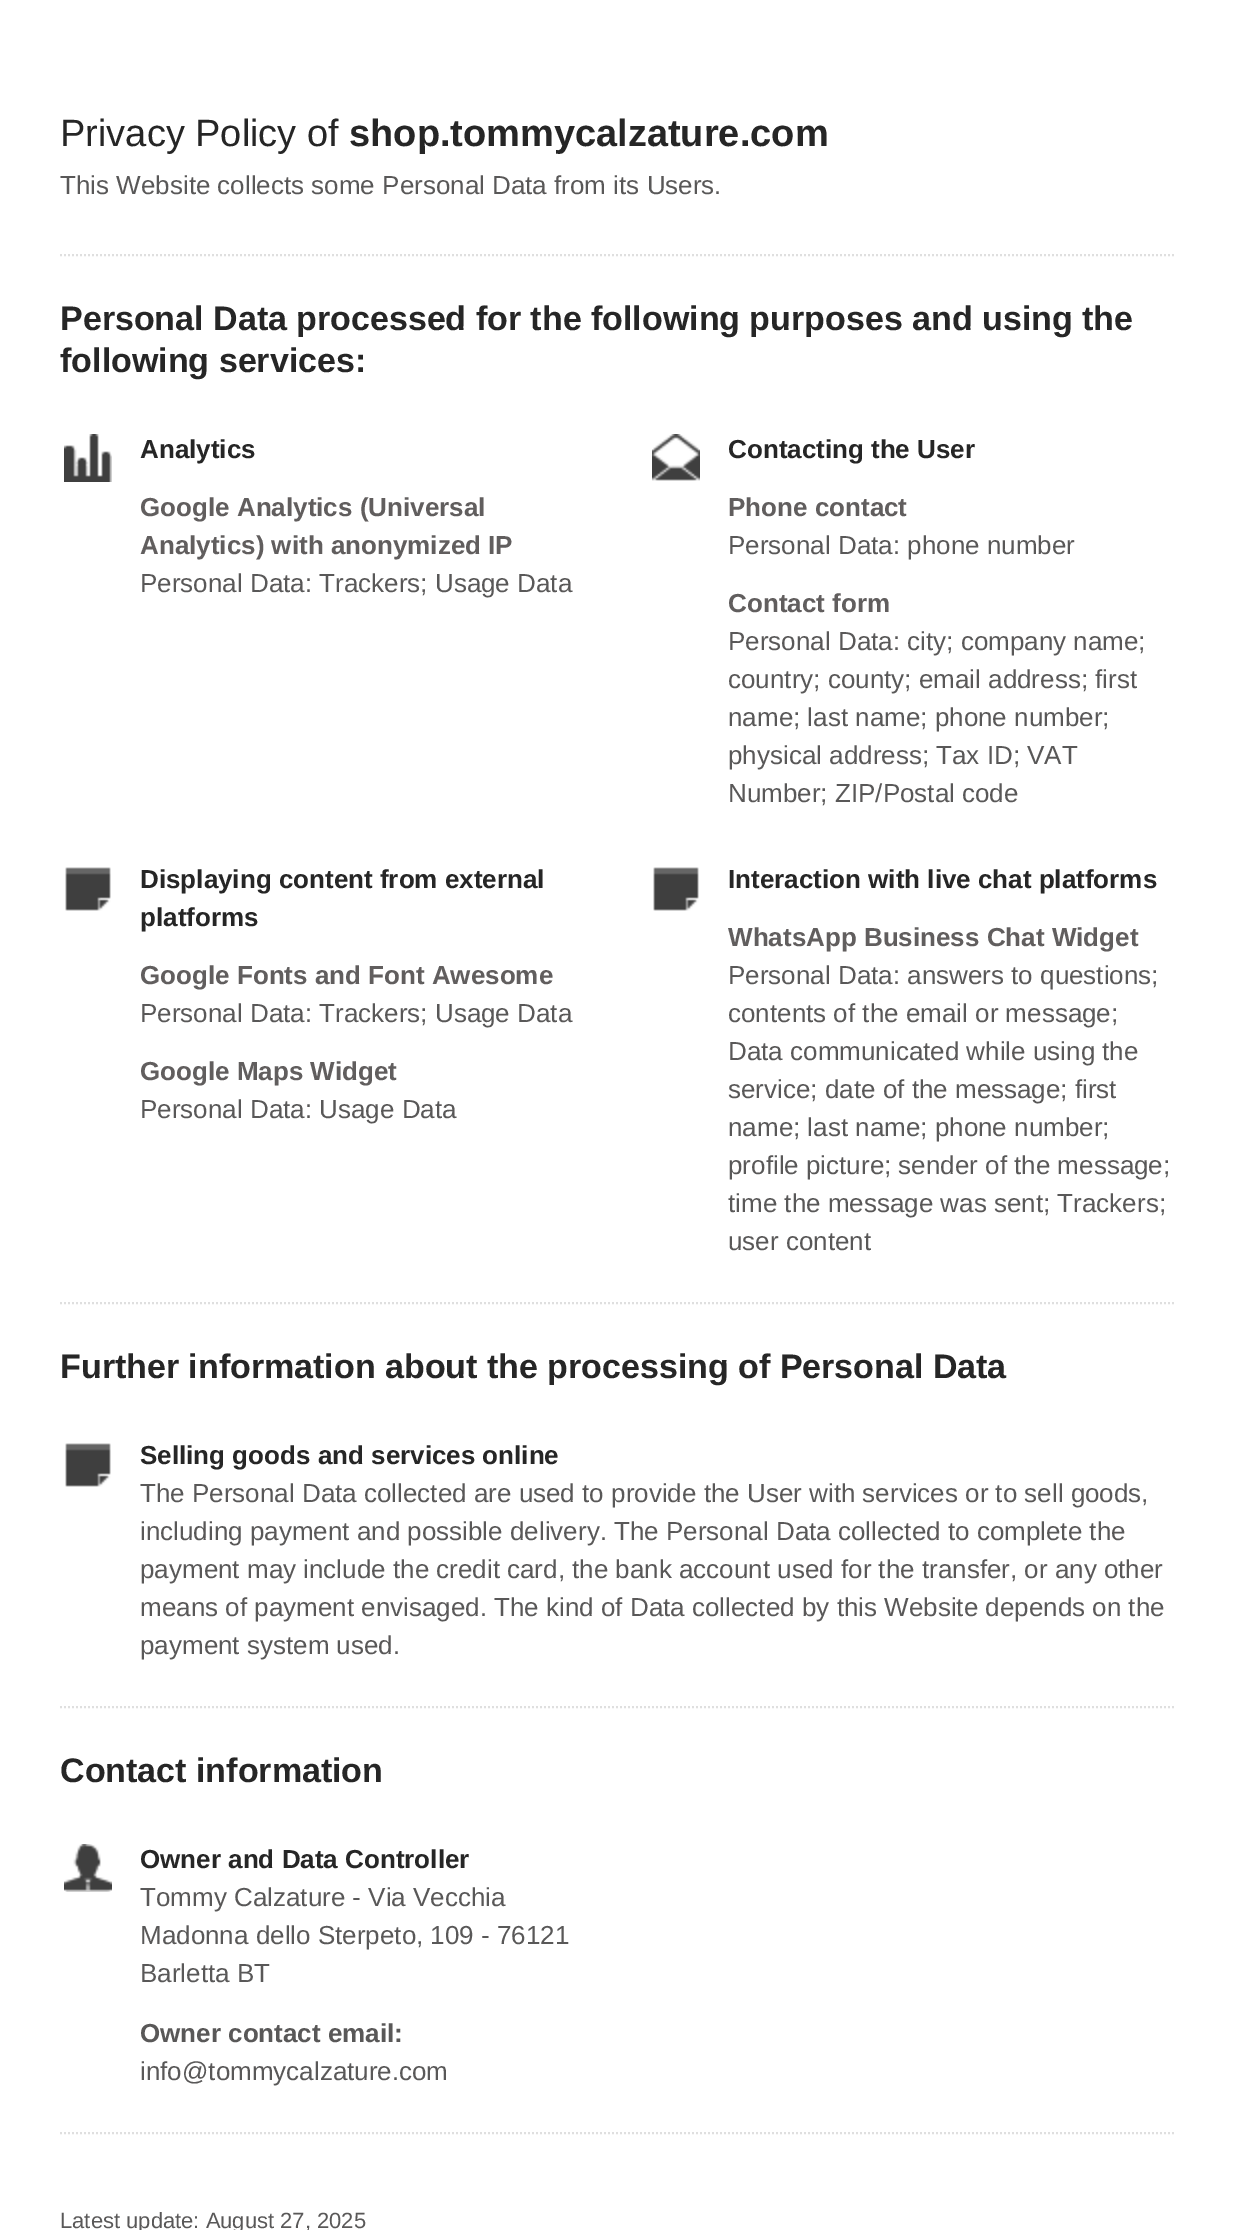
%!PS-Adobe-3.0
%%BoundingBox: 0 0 1235 2230
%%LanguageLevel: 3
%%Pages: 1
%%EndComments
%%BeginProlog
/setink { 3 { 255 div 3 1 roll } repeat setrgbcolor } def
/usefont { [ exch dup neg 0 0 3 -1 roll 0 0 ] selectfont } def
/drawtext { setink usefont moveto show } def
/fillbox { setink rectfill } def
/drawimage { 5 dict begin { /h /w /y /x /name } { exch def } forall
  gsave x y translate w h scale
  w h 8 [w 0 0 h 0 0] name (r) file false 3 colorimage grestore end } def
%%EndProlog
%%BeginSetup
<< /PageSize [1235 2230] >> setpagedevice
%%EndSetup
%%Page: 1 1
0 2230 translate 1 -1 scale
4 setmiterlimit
0 0 1235 2230 255 255 255 fillbox
223 223 223 setink
2 setlinewidth
[2 2] 0 setdash
60 255 moveto 1176 255 lineto stroke
(Privacy Policy of) 60 146 /LiberationSans-Regular 38 38 38 38 drawtext
(shop.tommycalzature.com) 349 146 /LiberationSans-Bold 38 38 38 38 drawtext
(This Website collects some Personal Data from its Users.) 60 194 /LiberationSans-Regular 26 89 88 88 drawtext
(Personal Data processed for the following purposes and using the) 60 330 /LiberationSans-Bold 34 38 38 38 drawtext
(following services:) 60 372 /LiberationSans-Bold 34 38 38 38 drawtext
223 223 223 setink
60 1303 moveto 1176 1303 lineto stroke
(assets/img1.rgb) 64 434 48 48 drawimage
(Analytics) 140 458 /LiberationSans-Bold 26 38 38 38 drawtext
(Google Analytics \(Universal) 140 516 /LiberationSans-Bold 26 97 94 94 drawtext
(Analytics\) with anonymized IP) 140 554 /LiberationSans-Bold 26 97 94 94 drawtext
(Personal Data: Trackers; Usage Data) 140 592 /LiberationSans-Regular 26 89 88 88 drawtext
(assets/img2.rgb) 652 434 48 47 drawimage
(Contacting the User) 728 458 /LiberationSans-Bold 26 38 38 38 drawtext
(Phone contact) 728 516 /LiberationSans-Bold 26 97 94 94 drawtext
(Personal Data: phone number) 728 554 /LiberationSans-Regular 26 89 88 88 drawtext
(Contact form) 728 612 /LiberationSans-Bold 26 97 94 94 drawtext
(Personal Data: city; company name;) 728 650 /LiberationSans-Regular 26 89 88 88 drawtext
(country; county; email address; first) 728 688 /LiberationSans-Regular 26 89 88 88 drawtext
(name; last name; phone number;) 728 726 /LiberationSans-Regular 26 89 88 88 drawtext
(physical address; Tax ID; VAT) 728 764 /LiberationSans-Regular 26 89 88 88 drawtext
(Number; ZIP/Postal code) 728 802 /LiberationSans-Regular 26 89 88 88 drawtext
(assets/img3.rgb) 65 867 46 44 drawimage
(Displaying content from external) 140 888 /LiberationSans-Bold 26 38 38 38 drawtext
(platforms) 140 926 /LiberationSans-Bold 26 38 38 38 drawtext
(Google Fonts and Font Awesome) 140 984 /LiberationSans-Bold 26 97 94 94 drawtext
(Personal Data: Trackers; Usage Data) 140 1022 /LiberationSans-Regular 26 89 88 88 drawtext
(Google Maps Widget) 140 1080 /LiberationSans-Bold 26 97 94 94 drawtext
(Personal Data: Usage Data) 140 1118 /LiberationSans-Regular 26 89 88 88 drawtext
(assets/img3.rgb) 653 867 46 44 drawimage
(Interaction with live chat platforms) 728 888 /LiberationSans-Bold 26 38 38 38 drawtext
(WhatsApp Business Chat Widget) 728 946 /LiberationSans-Bold 26 97 94 94 drawtext
(Personal Data: answers to questions;) 728 984 /LiberationSans-Regular 26 89 88 88 drawtext
(contents of the email or message;) 728 1022 /LiberationSans-Regular 26 89 88 88 drawtext
(Data communicated while using the) 728 1060 /LiberationSans-Regular 26 89 88 88 drawtext
(service; date of the message; first) 728 1098 /LiberationSans-Regular 26 89 88 88 drawtext
(name; last name; phone number;) 728 1136 /LiberationSans-Regular 26 89 88 88 drawtext
(profile picture; sender of the message;) 728 1174 /LiberationSans-Regular 26 89 88 88 drawtext
(time the message was sent; Trackers;) 728 1212 /LiberationSans-Regular 26 89 88 88 drawtext
(user content) 728 1250 /LiberationSans-Regular 26 89 88 88 drawtext
(Further information about the processing of Personal Data) 60 1378 /LiberationSans-Bold 34 38 38 38 drawtext
223 223 223 setink
60 1707 moveto 1176 1707 lineto stroke
(assets/img3.rgb) 65 1443 46 44 drawimage
(Selling goods and services online) 140 1464 /LiberationSans-Bold 26 38 38 38 drawtext
(The Personal Data collected are used to provide the User with services or to sell goods,) 140 1502 /LiberationSans-Regular 26 89 88 88 drawtext
(including payment and possible delivery. The Personal Data collected to complete the) 140 1540 /LiberationSans-Regular 26 89 88 88 drawtext
(payment may include the credit card, the bank account used for the transfer, or any other) 140 1578 /LiberationSans-Regular 26 89 88 88 drawtext
(means of payment envisaged. The kind of Data collected by this Website depends on the) 140 1616 /LiberationSans-Regular 26 89 88 88 drawtext
(payment system used.) 140 1654 /LiberationSans-Regular 26 89 88 88 drawtext
(Contact information) 60 1782 /LiberationSans-Bold 34 38 38 38 drawtext
223 223 223 setink
60 2133 moveto 1176 2133 lineto stroke
(assets/img4.rgb) 64 1844 48 48 drawimage
(Owner and Data Controller) 140 1868 /LiberationSans-Bold 26 38 38 38 drawtext
(Tommy Calzature - Via Vecchia) 140 1906 /LiberationSans-Regular 26 89 88 88 drawtext
(Madonna dello Sterpeto, 109 - 76121) 140 1944 /LiberationSans-Regular 26 89 88 88 drawtext
(Barletta BT) 140 1982 /LiberationSans-Regular 26 89 88 88 drawtext
(Owner contact email:) 140 2042 /LiberationSans-Bold 26 89 88 88 drawtext
(info@tommycalzature.com) 140 2080 /LiberationSans-Regular 26 89 88 88 drawtext
(Latest update: August 27, 2025) 60 2228 /LiberationSans-Regular 22 89 88 88 drawtext
showpage
%%EOF
